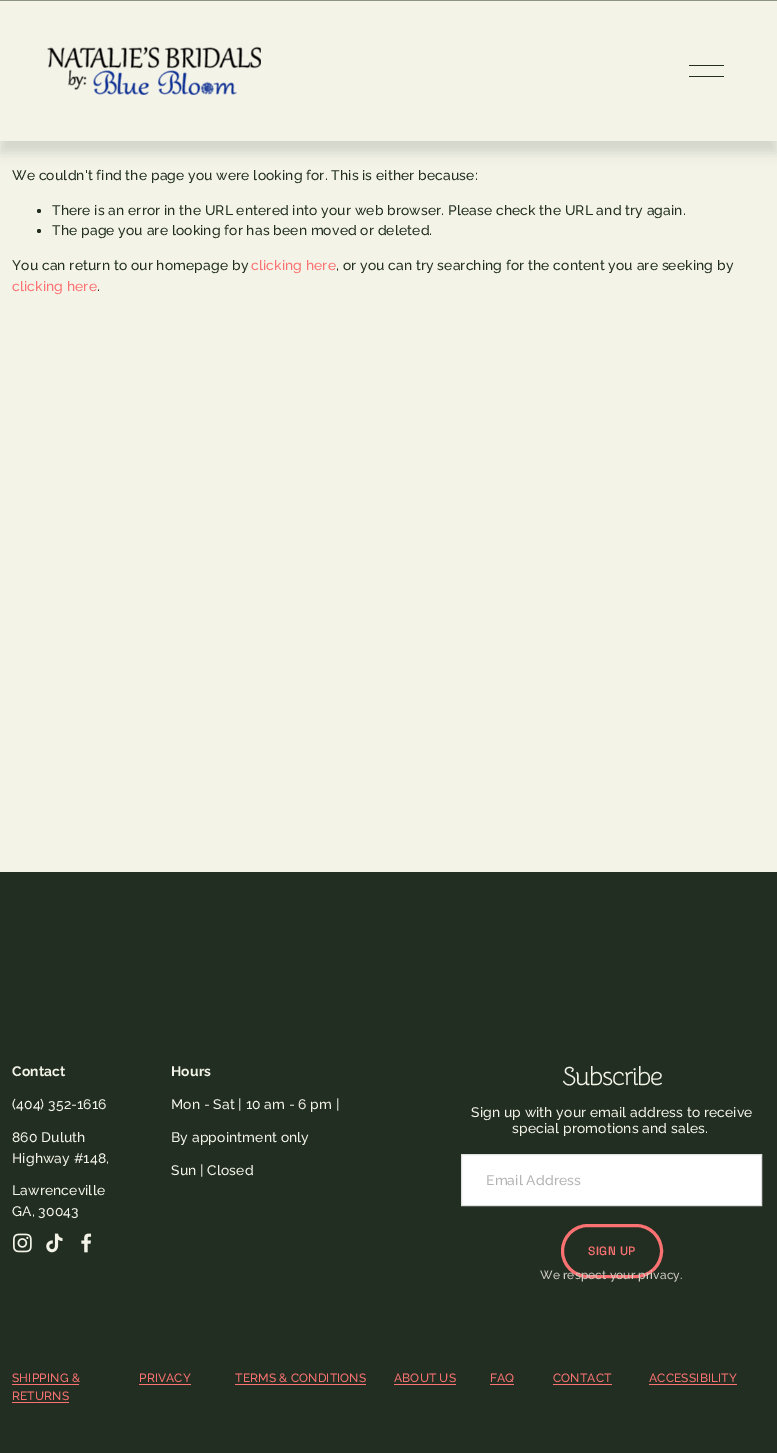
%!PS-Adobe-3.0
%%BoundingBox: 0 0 777 1453
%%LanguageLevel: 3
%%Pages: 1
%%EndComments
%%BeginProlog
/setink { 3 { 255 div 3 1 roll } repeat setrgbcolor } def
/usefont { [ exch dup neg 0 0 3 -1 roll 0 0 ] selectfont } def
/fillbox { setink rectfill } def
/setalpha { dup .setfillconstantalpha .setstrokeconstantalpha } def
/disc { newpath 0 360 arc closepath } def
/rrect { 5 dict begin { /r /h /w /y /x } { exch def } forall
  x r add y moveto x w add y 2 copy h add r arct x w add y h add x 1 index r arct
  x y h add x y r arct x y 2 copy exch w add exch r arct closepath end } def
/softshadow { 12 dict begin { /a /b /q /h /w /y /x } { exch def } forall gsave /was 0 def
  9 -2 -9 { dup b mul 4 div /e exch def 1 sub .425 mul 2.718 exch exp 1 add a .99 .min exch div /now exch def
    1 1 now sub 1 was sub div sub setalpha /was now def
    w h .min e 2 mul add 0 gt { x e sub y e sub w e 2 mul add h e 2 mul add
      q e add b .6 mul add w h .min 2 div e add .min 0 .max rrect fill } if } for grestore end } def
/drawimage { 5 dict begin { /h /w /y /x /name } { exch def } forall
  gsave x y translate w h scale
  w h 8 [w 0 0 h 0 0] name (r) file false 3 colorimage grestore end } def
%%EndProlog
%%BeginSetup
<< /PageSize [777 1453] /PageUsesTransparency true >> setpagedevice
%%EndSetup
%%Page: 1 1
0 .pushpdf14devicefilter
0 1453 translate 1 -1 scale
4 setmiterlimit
0 0 777 1453 244 243 232 fillbox
gsave
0 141 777 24 rectclip
212 213 202 setink
0 12 777 141 0 6 1 softshadow
grestore
0 0 777 1 141 146 134 fillbox
(assets/img1.rgb) 47 46 214 49 drawimage
689 65 35 1 33 46 33 fillbox
689 76 35 1 33 46 33 fillbox
/Raleway-Medium 13.85 usefont
12 180 moveto 0.15 0 (We couldn't find the page you were looking for. This is either because:) ashow
39 211 2 disc fill
52 215 moveto 0.15 0 (There is an error in the URL entered into your web browser. Please check the URL and try again.) ashow
39 231 2 disc fill
52 235 moveto 0.15 0 (The page you are looking for has been moved or deleted.) ashow
12 270 moveto 0.15 0 (You can return to our homepage by) ashow
252 114 114 setink
251 270 moveto 0.15 0 (clicking here) ashow
33 46 33 setink
336 270 moveto 0.15 0 (, or you can try searching for the content you are seeking by) ashow
252 114 114 setink
12 291 moveto 0.15 0 (clicking here) ashow
33 46 33 setink
97 291 moveto 0.15 0 (.) ashow
0 872 777 581 33 46 33 fillbox
/Raleway-Bold 13.85 usefont
244 243 232 setink
12 1076 moveto 0.15 0 (Contact) ashow
/Raleway-Medium 13.85 usefont
12 1109 moveto 0.15 0 (\(404\) 352-1616) ashow
12 1142 moveto 0.15 0 (860 Duluth) ashow
12 1163 moveto 0.15 0 (Highway #148,) ashow
12 1195 moveto 0.15 0 (Lawrenceville) ashow
12 1216 moveto 0.15 0 (GA, 30043) ashow
/Raleway-Bold 13.85 usefont
171 1076 moveto 0.15 0 (Hours) ashow
/Raleway-Medium 13.85 usefont
171 1109 moveto 0.15 0 (Mon - Sat | 10 am - 6 pm |) ashow
171 1142 moveto 0.15 0 (By appointment only) ashow
171 1175 moveto 0.15 0 (Sun | Closed) ashow
/Bellota-Regular 26 usefont
562 1085 moveto -1.25 0 (Subscribe) ashow
/Raleway-Medium 13.85 usefont
471 1117 moveto 0.15 0 (Sign up with your email address to receive) ashow
512 1133 moveto 0.15 0 (special promotions and sales.) ashow
255 255 255 setink
461.5 1154.5 moveto 761.5 1154.5 lineto 761.5 1205.5 lineto 461.5 1205.5 lineto closepath gsave fill grestore
224 224 224 setink
stroke
179 179 179 setink
486 1185 moveto 0.15 0 (Email Address) ashow
252 114 114 setink
3 setlinewidth
562.5 1225.5 99 51 25.5 rrect stroke
/SpaceGrotesk-Light 12 usefont
588 1255 moveto 0.5 0 (SIGN UP) ashow
/Raleway-Medium 12 usefont
211 206 196 setink
540 1279 moveto 0.1 0 (We respect your privacy.) ashow
(assets/img2.rgb) 13 1233 19 20 drawimage
(assets/img3.rgb) 46 1233 17 20 drawimage
(assets/img4.rgb) 81 1233 11 20 drawimage
252 114 114 setink
12 1382 moveto 0.15 0 (SHIPPING &) ashow
12 1384 67 1 252 114 114 fillbox
12 1400 moveto 0.15 0 (RETURNS) ashow
12 1402 57 1 252 114 114 fillbox
139 1382 moveto 0.15 0 (PRIVACY) ashow
139 1384 52 1 252 114 114 fillbox
235 1382 moveto 0.15 0 (TERMS & CONDITIONS) ashow
235 1384 131 1 252 114 114 fillbox
394 1382 moveto 0.15 0 (ABOUT US) ashow
394 1384 62 1 252 114 114 fillbox
490 1382 moveto 0.15 0 (FAQ) ashow
490 1384 24 1 252 114 114 fillbox
553 1382 moveto 0.15 0 (CONTACT) ashow
553 1384 59 1 252 114 114 fillbox
649 1382 moveto 0.15 0 (ACCESSIBILITY) ashow
649 1384 88 1 252 114 114 fillbox
.poppdf14devicefilter showpage
%%EOF
